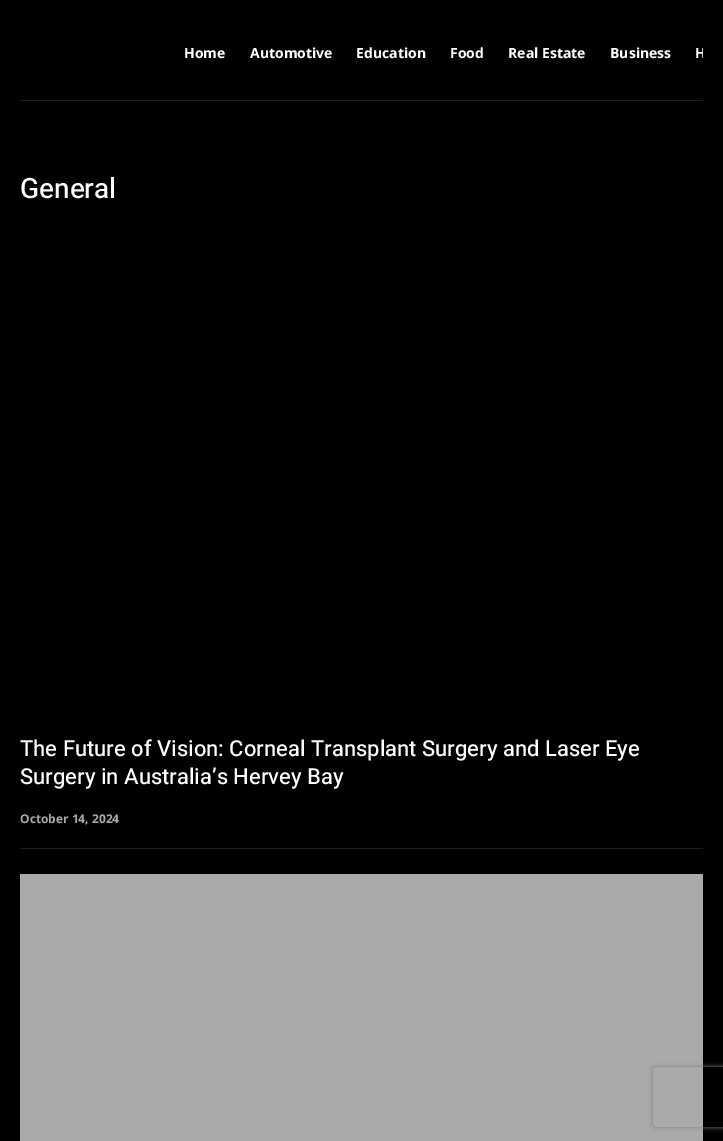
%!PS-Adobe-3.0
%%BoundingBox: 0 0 723 1141
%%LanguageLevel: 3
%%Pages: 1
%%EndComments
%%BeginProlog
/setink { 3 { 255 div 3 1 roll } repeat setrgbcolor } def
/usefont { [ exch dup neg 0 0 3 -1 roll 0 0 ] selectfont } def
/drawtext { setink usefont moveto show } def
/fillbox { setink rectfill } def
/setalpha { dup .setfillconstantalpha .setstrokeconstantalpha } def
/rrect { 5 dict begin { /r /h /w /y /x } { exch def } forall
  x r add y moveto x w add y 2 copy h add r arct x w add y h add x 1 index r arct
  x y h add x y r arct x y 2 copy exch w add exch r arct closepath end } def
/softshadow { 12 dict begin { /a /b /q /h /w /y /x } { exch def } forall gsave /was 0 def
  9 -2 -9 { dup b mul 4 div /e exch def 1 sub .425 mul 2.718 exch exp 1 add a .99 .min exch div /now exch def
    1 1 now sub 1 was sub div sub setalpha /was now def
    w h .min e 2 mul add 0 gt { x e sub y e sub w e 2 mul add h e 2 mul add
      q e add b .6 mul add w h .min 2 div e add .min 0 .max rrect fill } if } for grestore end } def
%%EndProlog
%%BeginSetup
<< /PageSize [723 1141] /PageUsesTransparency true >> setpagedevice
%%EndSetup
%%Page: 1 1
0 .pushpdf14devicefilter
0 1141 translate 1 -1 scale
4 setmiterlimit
0 0 723 1141 0 0 0 fillbox
(Home) 184 58 /OpenSans-Bold 14 255 255 255 drawtext
(Automotive) 250 58 /OpenSans-Bold 14 255 255 255 drawtext
(Education) 356 58 /OpenSans-Bold 14 255 255 255 drawtext
(Food) 450 58 /OpenSans-Bold 14 255 255 255 drawtext
(Real Estate) 508 58 /OpenSans-Bold 14 255 255 255 drawtext
(Business) 610 58 /OpenSans-Bold 14 255 255 255 drawtext
gsave
184 25 519 56 rectclip
(H) 695 58 /OpenSans-Bold 14 255 255 255 drawtext
grestore
20 100 683 1 31 30 30 fillbox
(General) 20 198 /Heebo-Medium 28 255 255 255 drawtext
(The Future of Vision: Corneal Transplant Surgery and Laser Eye) 20 756 /Heebo-Medium 22 255 255 255 drawtext
(Surgery in Australia’s Hervey Bay) 20 784 /Heebo-Medium 22 255 255 255 drawtext
(October 14, 2024) 20 823 /OpenSans-Bold 12 170 170 170 drawtext
20 848 683 1 31 30 30 fillbox
20 874 683 267 170 170 170 fillbox
gsave
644 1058 moveto 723 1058 lineto 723 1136 lineto 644 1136 lineto closepath 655 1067 moveto 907 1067 lineto 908 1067 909 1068 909 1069 curveto 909 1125 lineto 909 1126 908 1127 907 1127 curveto 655 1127 lineto 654 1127 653 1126 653 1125 curveto 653 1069 lineto 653 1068 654 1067 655 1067 curveto closepath eoclip newpath
128 128 128 setink
653 1067 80 60 2 2.5 1 softshadow
grestore
.poppdf14devicefilter showpage
%%EOF
